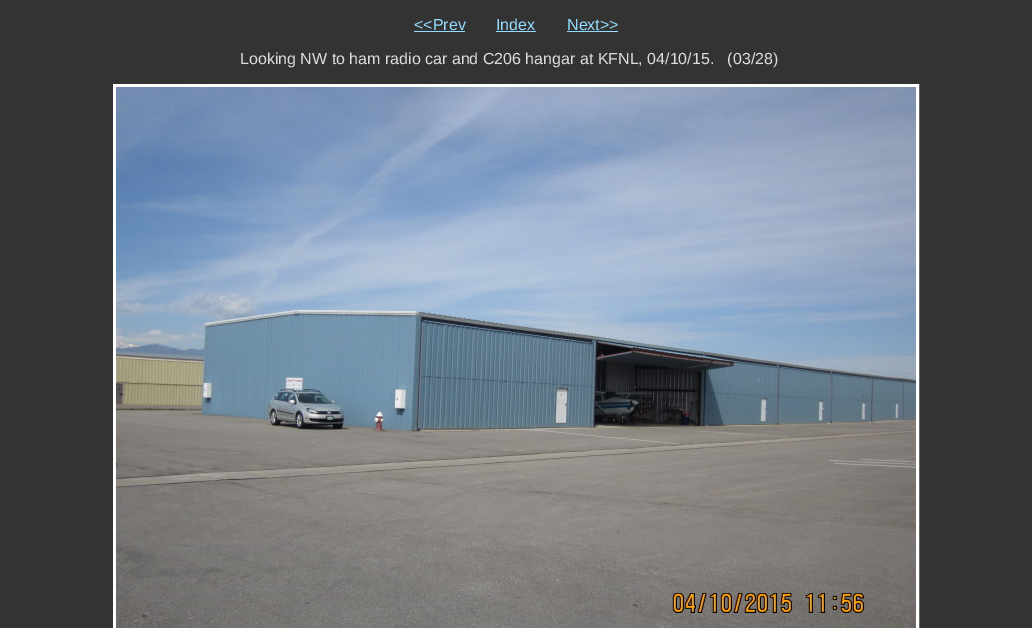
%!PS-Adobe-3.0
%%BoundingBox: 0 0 1032 628
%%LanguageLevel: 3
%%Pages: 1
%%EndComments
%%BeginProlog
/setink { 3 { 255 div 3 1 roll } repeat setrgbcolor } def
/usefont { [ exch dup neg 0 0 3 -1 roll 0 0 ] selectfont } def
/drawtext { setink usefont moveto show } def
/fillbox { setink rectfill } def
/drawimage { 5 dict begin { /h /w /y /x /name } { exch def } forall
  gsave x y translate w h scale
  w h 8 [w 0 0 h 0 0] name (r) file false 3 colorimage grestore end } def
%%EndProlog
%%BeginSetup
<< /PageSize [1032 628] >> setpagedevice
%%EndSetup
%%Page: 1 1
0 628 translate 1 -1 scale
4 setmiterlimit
0 0 1032 628 51 51 51 fillbox
(<<Prev) 414 30 /LiberationSans-Regular 16 149 221 255 drawtext
414 31 51 1 149 221 255 fillbox
(Index) 496 30 /LiberationSans-Regular 16 149 221 255 drawtext
496 31 40 1 149 221 255 fillbox
(Next>>) 567 30 /LiberationSans-Regular 16 149 221 255 drawtext
567 31 51 1 149 221 255 fillbox
(Looking NW to ham radio car and C206 hangar at KFNL, 04/10/15.   \(03/28\)) 240 64 /LiberationSans-Regular 16 221 221 221 drawtext
255 255 255 setink
3 setlinewidth
114.5 85.5 803 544 rectstroke
(assets/img1.rgb) 116 87 800 541 drawimage
showpage
%%EOF
